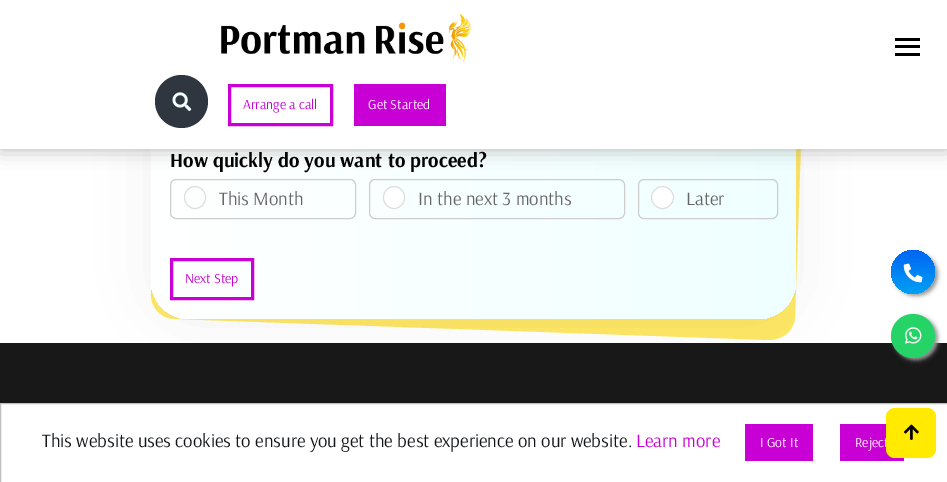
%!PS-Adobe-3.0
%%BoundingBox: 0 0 947 482
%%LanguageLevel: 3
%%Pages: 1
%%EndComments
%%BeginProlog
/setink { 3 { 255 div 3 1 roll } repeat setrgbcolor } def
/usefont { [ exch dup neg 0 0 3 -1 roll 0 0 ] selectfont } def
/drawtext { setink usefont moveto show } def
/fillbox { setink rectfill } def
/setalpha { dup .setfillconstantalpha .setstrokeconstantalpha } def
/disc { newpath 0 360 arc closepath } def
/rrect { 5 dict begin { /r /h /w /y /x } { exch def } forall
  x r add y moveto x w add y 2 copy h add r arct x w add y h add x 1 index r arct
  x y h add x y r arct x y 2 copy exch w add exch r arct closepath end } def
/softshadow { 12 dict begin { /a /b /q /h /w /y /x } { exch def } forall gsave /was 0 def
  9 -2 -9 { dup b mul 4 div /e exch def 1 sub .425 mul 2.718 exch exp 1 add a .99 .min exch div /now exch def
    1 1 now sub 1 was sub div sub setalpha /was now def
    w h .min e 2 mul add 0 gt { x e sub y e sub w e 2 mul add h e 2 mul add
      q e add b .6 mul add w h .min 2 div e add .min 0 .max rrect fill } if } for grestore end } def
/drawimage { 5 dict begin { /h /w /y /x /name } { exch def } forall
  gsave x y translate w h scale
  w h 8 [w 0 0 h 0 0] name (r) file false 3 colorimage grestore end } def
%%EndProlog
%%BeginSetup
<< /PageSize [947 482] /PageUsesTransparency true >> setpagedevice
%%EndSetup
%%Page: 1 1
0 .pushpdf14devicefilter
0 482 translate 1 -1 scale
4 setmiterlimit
0 0 947 482 255 255 255 fillbox
255 232 100 setink
201 -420 moveto 795 -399 lineto 809 -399 820 -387 819 -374 curveto 795 316 lineto 795 330 783 340 769 340 curveto 175 319 lineto 161 319 150 307 151 293 curveto 175 -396 lineto 175 -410 187 -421 201 -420 curveto closepath fill
0 343 947 60 24 24 24 fillbox
1 1 1 setink
151 -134 645 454 38 32 0.06 softshadow
gsave 151 -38 645 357 38 rrect clip newpath
<< /ShadingType 2 /ColorSpace /DeviceRGB /Coords [796 -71 151 -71] /Extend [true true] /Function << /FunctionType 2 /Domain [0 1] /C0 [0.937 1 1] /C1 [1 1 1] /N 1 >> >> shfill grestore
142 142 142 setink
0 0 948 149 0 9.5 0.65 softshadow
0 0 947 149 255 255 255 fillbox
895 38 25 3 0 0 0 fillbox
895 45 25 3 0 0 0 fillbox
895 53 25 3 0 0 0 fillbox
(assets/img1.rgb) 221 13 251 50 drawimage
47 54 64 setink
181.5 101.5 26.5 disc fill
(assets/img2.rgb) 172 92 20 19 drawimage
200 0 213 setink
3 setlinewidth
229.5 85.5 102 39 rectstroke
(Arrange a call) 243 109 /Arsenal-Regular 13.75 200 0 213 drawtext
354 84 92 42 200 0 213 fillbox
(Get Started) 368 109 /Arsenal-Regular 13.75 255 255 255 drawtext
(How quickly do you want to proceed?) 170 167 /Arsenal-Bold 20 0 0 0 drawtext
206 206 206 setink
1 setlinewidth
170.5 179.5 185 39 5.5 rrect stroke
221 221 221 setink
184.5 186.5 21 22 10.5 rrect stroke
(This Month) 219 205 /Arsenal-Regular 18.75 102 102 102 drawtext
206 206 206 setink
369.5 179.5 255 39 5.5 rrect stroke
255 255 255 setink
383.5 186.5 21 22 10.5 rrect gsave fill grestore
221 221 221 setink
stroke
(In the next 3 months) 418 205 /Arsenal-Regular 18.75 102 102 102 drawtext
206 206 206 setink
638.5 179.5 139 39 5.5 rrect stroke
255 255 255 setink
662.5 197.5 11 disc gsave fill grestore
221 221 221 setink
stroke
(Later) 686 205 /Arsenal-Regular 18.75 102 102 102 drawtext
200 0 213 setink
3 setlinewidth
171.5 259.5 81 39 rectstroke
(Next Step) 185 283 /Arsenal-Regular 13.75 200 0 213 drawtext
153 153 153 setink
894 253 44 43 21.5 2 1 softshadow
gsave 913 272 22 disc clip newpath
<< /ShadingType 2 /ColorSpace /DeviceRGB /Coords [913 294 913 250] /Extend [true true] /Function << /FunctionType 2 /Domain [0 1] /C0 [0 0.631 0.961] /C1 [0 0.392 0.953] /N 1 >> >> shfill grestore
(assets/img3.rgb) 903 263 20 20 drawimage
894 316 44 44 22 2 1 softshadow
37 211 102 setink
913 336 22 disc fill
(assets/img4.rgb) 905 327 17 17 drawimage
188 190 191 setink
1 setlinewidth
0.5 403.5 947 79 rectstroke
(This website uses cookies to ensure you get the best experience on our website.) 42 447 /Arsenal-Regular 18.75 20 22 25 drawtext
(Learn more) 636 447 /Arsenal-Regular 18.75 200 0 213 drawtext
745 424 68 37 200 0 213 fillbox
(I Got It) 760 447 /Arsenal-Regular 13.75 255 255 255 drawtext
840 424 64 37 200 0 213 fillbox
(Reject) 855 447 /Arsenal-Regular 13.75 255 255 255 drawtext
255 234 0 setink
886 408 50 50 9 rrect fill
(assets/img5.rgb) 904 424 15 16 drawimage
.poppdf14devicefilter showpage
%%EOF
